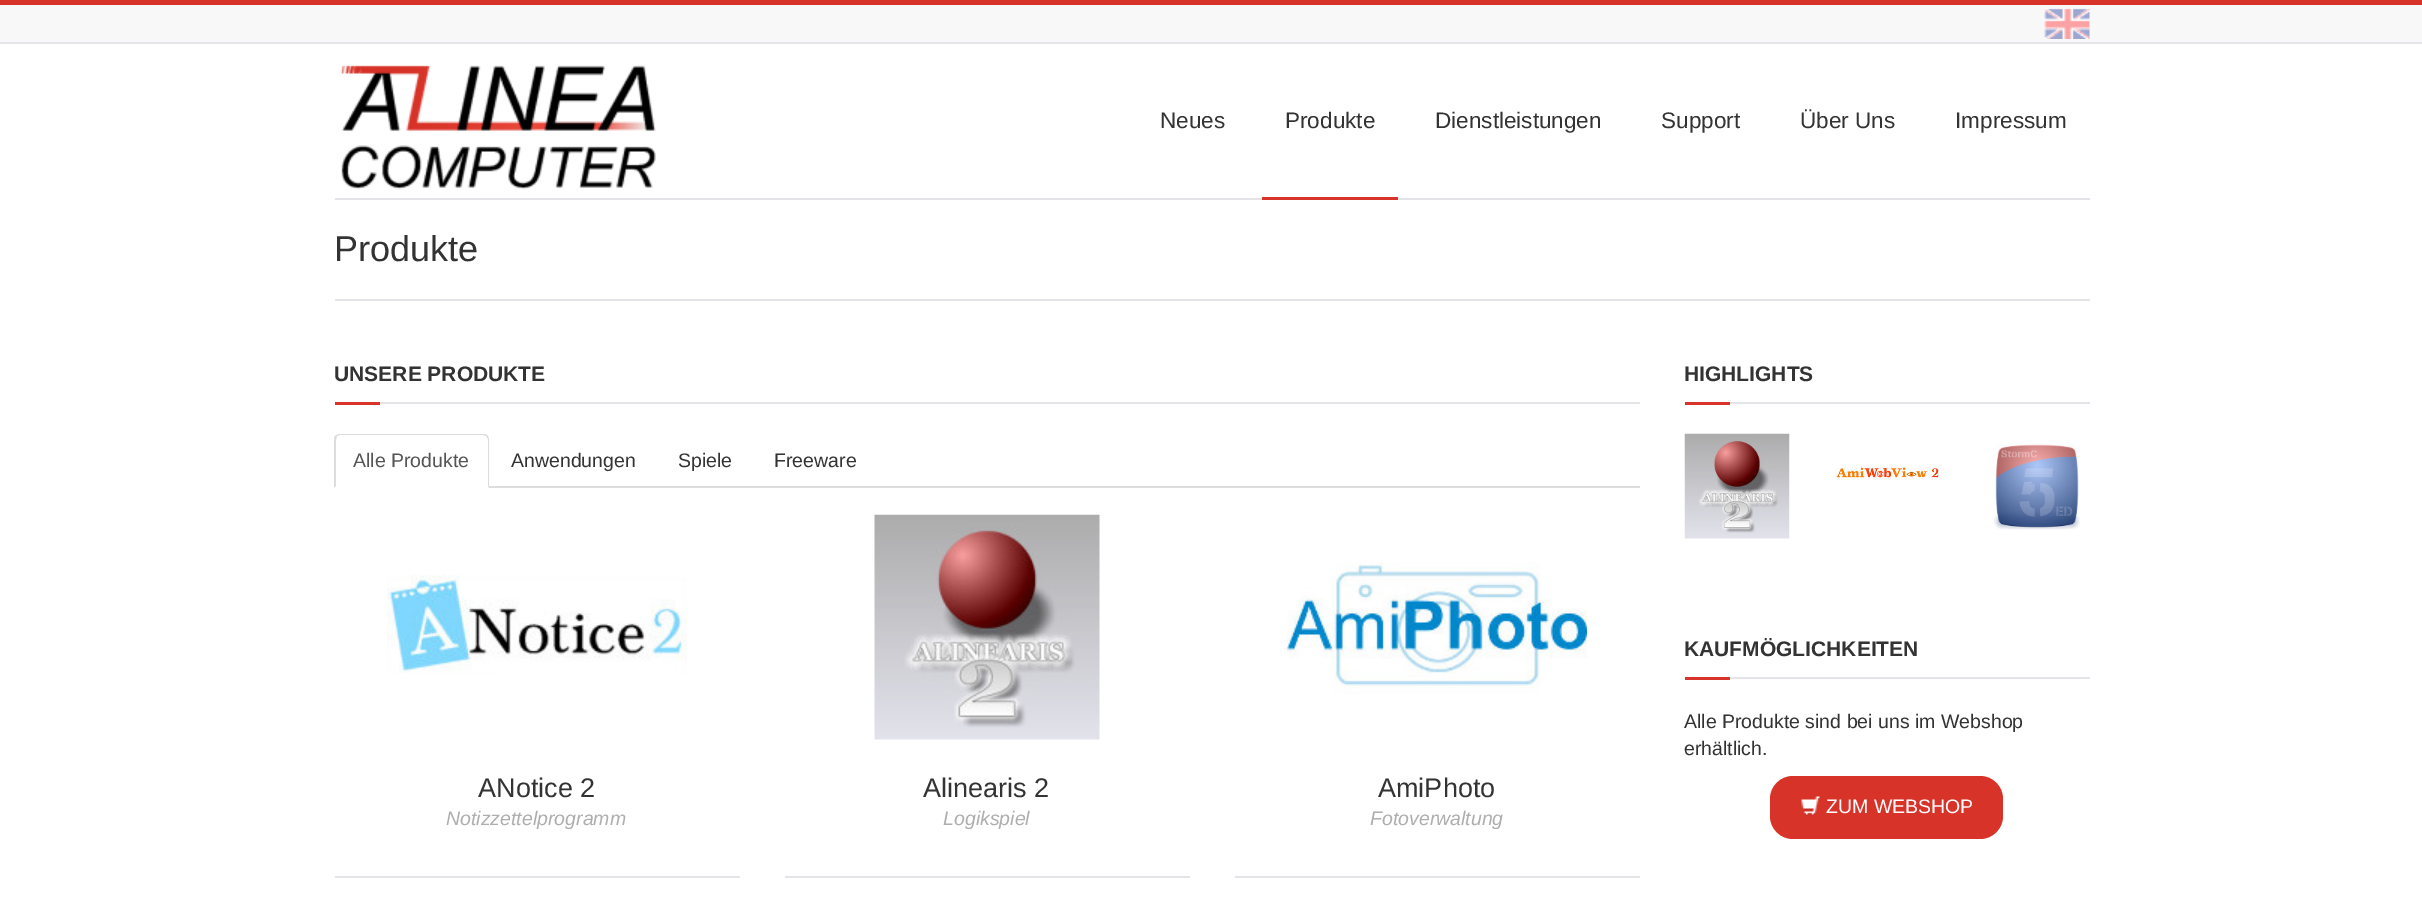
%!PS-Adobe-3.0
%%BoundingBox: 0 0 2422 920
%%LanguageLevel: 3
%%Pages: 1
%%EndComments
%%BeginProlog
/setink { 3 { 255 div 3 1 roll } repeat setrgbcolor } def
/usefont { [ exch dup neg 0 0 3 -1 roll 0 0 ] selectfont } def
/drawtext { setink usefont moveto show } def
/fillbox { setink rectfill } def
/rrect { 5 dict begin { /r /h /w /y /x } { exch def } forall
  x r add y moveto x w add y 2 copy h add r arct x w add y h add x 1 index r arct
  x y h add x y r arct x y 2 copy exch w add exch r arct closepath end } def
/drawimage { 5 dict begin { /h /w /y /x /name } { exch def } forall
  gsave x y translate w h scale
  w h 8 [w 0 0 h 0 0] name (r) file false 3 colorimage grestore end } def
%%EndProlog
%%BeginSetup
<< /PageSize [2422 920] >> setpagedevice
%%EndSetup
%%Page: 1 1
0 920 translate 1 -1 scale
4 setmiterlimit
0 0 2422 920 255 255 255 fillbox
0 5 2422 37 248 248 248 fillbox
0 0 2422 5 216 51 40 fillbox
(assets/img1.rgb) 2044 8 46 31 drawimage
0 42 2422 2 227 227 232 fillbox
335 198 1755 2 227 227 232 fillbox
(assets/img2.rgb) 340 65 316 125 drawimage
(Neues) 1160 128 /LiberationSans-Regular 22.5 51 51 51 drawtext
1262 197 136 3 216 51 40 fillbox
(Produkte) 1285 128 /LiberationSans-Regular 22.5 51 51 51 drawtext
(Dienstleistungen) 1435 128 /LiberationSans-Regular 22.5 51 51 51 drawtext
(Support) 1661 128 /LiberationSans-Regular 22.5 51 51 51 drawtext
(Über Uns) 1800 128 /LiberationSans-Regular 22.5 51 51 51 drawtext
(Impressum) 1955 128 /LiberationSans-Regular 22.5 51 51 51 drawtext
335 299 1755 2 227 227 232 fillbox
(Produkte) 334 261 /LiberationSans-Regular 36 51 51 51 drawtext
380 402 1260 2 227 227 232 fillbox
(UNSERE PRODUKTE) 334 381 /LiberationSans-Bold 21 51 51 51 drawtext
335 402 45 3 216 51 40 fillbox
489 486 1151 2 221 221 221 fillbox
340 434 moveto 336 435 lineto 337 436 lineto 340 435 lineto 483 435 lineto 486 436 lineto 487 435 lineto 486 434 484 434 483 434 curveto closepath fill
487 435 moveto 488 436 489 438 489 440 curveto 489 488 lineto 488 486 lineto 488 440 lineto 488 438 487 437 486 436 curveto closepath fill
334 488 moveto 336 486 lineto 336 440 lineto 336 438 337 437 337 436 curveto 336 435 lineto 334 437 lineto closepath fill
(Alle Produkte) 353 467 /LiberationSans-Regular 19.5 85 85 85 drawtext
(Anwendungen) 511 467 /LiberationSans-Regular 19.5 51 51 51 drawtext
(Spiele) 678 467 /LiberationSans-Regular 19.5 51 51 51 drawtext
(Freeware) 774 467 /LiberationSans-Regular 19.5 51 51 51 drawtext
(assets/img3.rgb) 387 574 300 100 drawimage
335 876 405 2 227 227 232 fillbox
(ANotice 2) 478 797 /LiberationSans-Regular 27 51 51 51 drawtext
(Notizzettelprogramm) 446 825 /LiberationSans-Italic 19.5 174 174 174 drawtext
(assets/img4.rgb) 874 514 226 226 drawimage
785 876 405 2 227 227 232 fillbox
(Alinearis 2) 923 797 /LiberationSans-Regular 27 51 51 51 drawtext
(Logikspiel) 943 825 /LiberationSans-Italic 19.5 174 174 174 drawtext
(assets/img5.rgb) 1287 562 300 132 drawimage
1235 876 405 2 227 227 232 fillbox
(AmiPhoto) 1378 797 /LiberationSans-Regular 27 51 51 51 drawtext
(Fotoverwaltung) 1370 825 /LiberationSans-Italic 19.5 174 174 174 drawtext
1730 402 360 2 227 227 232 fillbox
(HIGHLIGHTS) 1684 381 /LiberationSans-Bold 21 51 51 51 drawtext
1685 402 45 3 216 51 40 fillbox
(assets/img6.rgb) 1684 433 106 106 drawimage
(assets/img7.rgb) 1835 467 104 13 drawimage
(assets/img8.rgb) 1993 444 87 86 drawimage
1730 677 360 2 227 227 232 fillbox
(KAUFMÖGLICHKEITEN) 1684 656 /LiberationSans-Bold 21 51 51 51 drawtext
1685 677 45 3 216 51 40 fillbox
(Alle Produkte sind bei uns im Webshop) 1684 728 /LiberationSans-Regular 19.5 51 51 51 drawtext
(erhältlich.) 1684 755 /LiberationSans-Regular 19.5 51 51 51 drawtext
216 51 40 setink
1770 776 233 63 23 rrect fill
(assets/img9.rgb) 1801 796 19 20 drawimage
(ZUM WEBSHOP) 1826 813 /LiberationSans-Regular 19.5 255 255 255 drawtext
showpage
%%EOF
